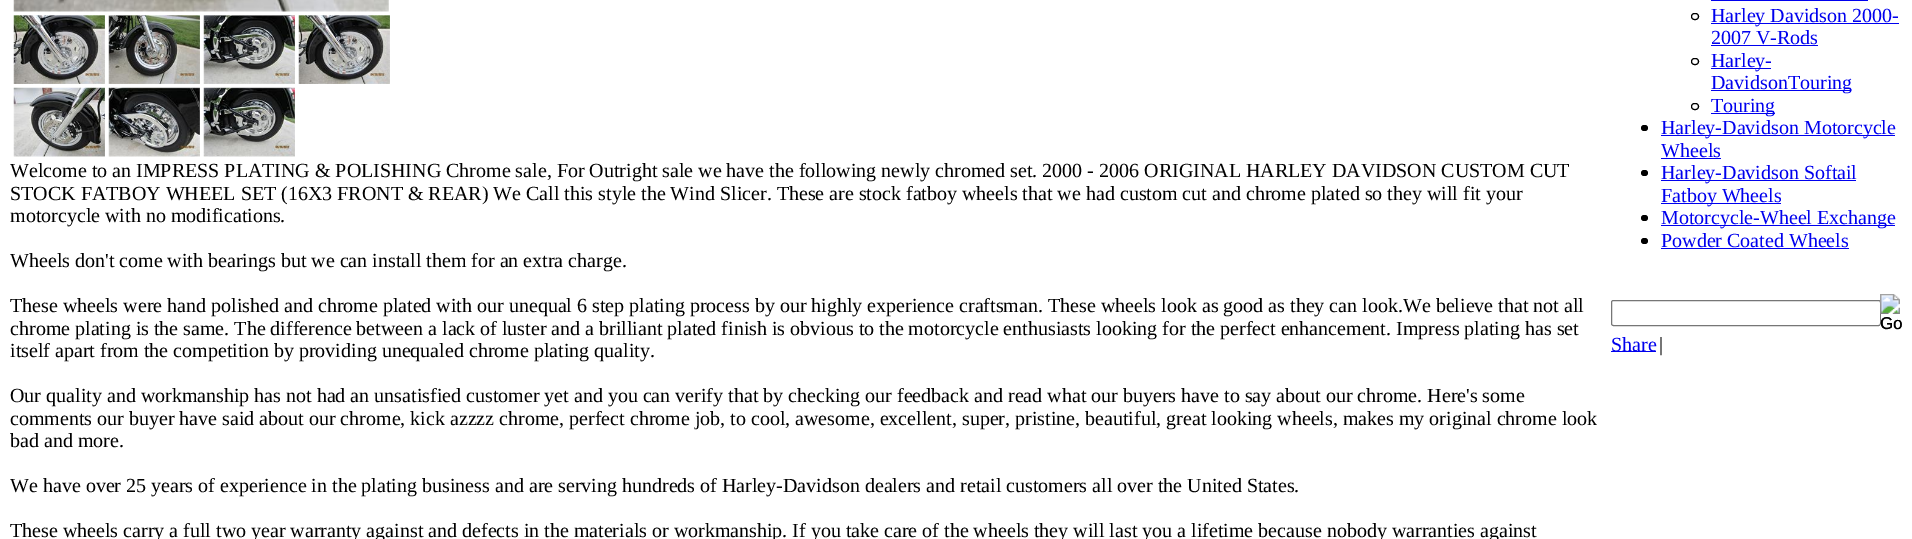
%!PS-Adobe-3.0
%%BoundingBox: 0 0 1912 539
%%LanguageLevel: 3
%%Pages: 1
%%EndComments
%%BeginProlog
/setink { 3 { 255 div 3 1 roll } repeat setrgbcolor } def
/usefont { [ exch dup neg 0 0 3 -1 roll 0 0 ] selectfont } def
/drawtext { setink usefont moveto show } def
/fillbox { setink rectfill } def
/rrect { 5 dict begin { /r /h /w /y /x } { exch def } forall
  x r add y moveto x w add y 2 copy h add r arct x w add y h add x 1 index r arct
  x y h add x y r arct x y 2 copy exch w add exch r arct closepath end } def
/drawimage { 5 dict begin { /h /w /y /x /name } { exch def } forall
  gsave x y translate w h scale
  w h 8 [w 0 0 h 0 0] name (r) file false 3 colorimage grestore end } def
%%EndProlog
%%BeginSetup
<< /PageSize [1912 539] >> setpagedevice
%%EndSetup
%%Page: 1 1
0 539 translate 1 -1 scale
4 setmiterlimit
0 0 1912 539 255 255 255 fillbox
(assets/img1.rgb) 13 0 376 12 drawimage
(assets/img2.rgb) 13 15 92 69 drawimage
(assets/img3.rgb) 108 15 92 69 drawimage
(assets/img4.rgb) 203 15 92 69 drawimage
(assets/img2.rgb) 298 15 92 69 drawimage
(assets/img5.rgb) 13 87 92 70 drawimage
(assets/img6.rgb) 108 87 92 70 drawimage
(assets/img7.rgb) 203 87 92 70 drawimage
(Welcome to an IMPRESS PLATING & POLISHING Chrome sale, For Outright sale we have the following newly chromed set. 2000 - 2006 ORIGINAL HARLEY DAVIDSON CUSTOM CUT) 10 177 /LiberationSerif-Regular 20 0 0 0 drawtext
(STOCK FATBOY WHEEL SET \(16X3 FRONT & REAR\) We Call this style the Wind Slicer. These are stock fatboy wheels that we had custom cut and chrome plated so they will fit your) 10 200 /LiberationSerif-Regular 20 0 0 0 drawtext
(motorcycle with no modifications.) 10 222 /LiberationSerif-Regular 20 0 0 0 drawtext
(Wheels don't come with bearings but we can install them for an extra charge.) 10 267 /LiberationSerif-Regular 20 0 0 0 drawtext
(These wheels were hand polished and chrome plated with our unequal 6 step plating process by our highly experience craftsman. These wheels look as good as they can look.We believe that not all) 10 312 /LiberationSerif-Regular 20 0 0 0 drawtext
(chrome plating is the same. The difference between a lack of luster and a brilliant plated finish is obvious to the motorcycle enthusiasts looking for the perfect enhancement. Impress plating has set) 10 335 /LiberationSerif-Regular 20 0 0 0 drawtext
(itself apart from the competition by providing unequaled chrome plating quality.) 10 357 /LiberationSerif-Regular 20 0 0 0 drawtext
(Our quality and workmanship has not had an unsatisfied customer yet and you can verify that by checking our feedback and read what our buyers have to say about our chrome. Here's some) 10 402 /LiberationSerif-Regular 20 0 0 0 drawtext
(comments our buyer have said about our chrome, kick azzzz chrome, perfect chrome job, to cool, awesome, excellent, super, pristine, beautiful, great looking wheels, makes my original chrome look) 10 425 /LiberationSerif-Regular 20 0 0 0 drawtext
(bad and more.) 10 447 /LiberationSerif-Regular 20 0 0 0 drawtext
(We have over 25 years of experience in the plating business and are serving hundreds of Harley-Davidson dealers and retail customers all over the United States.) 10 492 /LiberationSerif-Regular 20 0 0 0 drawtext
(These wheels carry a full two year warranty against and defects in the materials or workmanship. If you take care of the wheels they will last you a lifetime because nobody warranties against) 10 537 /LiberationSerif-Regular 20 0 0 0 drawtext
1711 0 157 1 0 0 238 fillbox
0 0 0 setink
1691.5 13.5 7 6 3 rrect stroke
1711 23 188 1 0 0 238 fillbox
(Harley Davidson 2000-) 1711 22 /LiberationSerif-Regular 20 0 0 238 drawtext
(2007 V-Rods) 1711 44 /LiberationSerif-Regular 20 0 0 238 drawtext
1711 45 107 1 0 0 238 fillbox
0 0 0 setink
1691.5 58.5 7 6 3 rrect stroke
1711 68 60 1 0 0 238 fillbox
(Harley-) 1711 67 /LiberationSerif-Regular 20 0 0 238 drawtext
1711 90 140 1 0 0 238 fillbox
(DavidsonTouring) 1711 89 /LiberationSerif-Regular 20 0 0 238 drawtext
0 0 0 setink
1691.5 103.5 7 6 3 rrect stroke
1711 113 64 1 0 0 238 fillbox
(Touring) 1711 112 /LiberationSerif-Regular 20 0 0 238 drawtext
0 0 0 setink
1641 125 7 6 3 rrect fill
1661 135 234 1 0 0 238 fillbox
(Harley-Davidson Motorcycle) 1661 134 /LiberationSerif-Regular 20 0 0 238 drawtext
(Wheels) 1661 157 /LiberationSerif-Regular 20 0 0 238 drawtext
1661 158 60 1 0 0 238 fillbox
0 0 0 setink
1641 170 7 6 3 rrect fill
1661 180 195 1 0 0 238 fillbox
(Harley-Davidson Softail) 1661 179 /LiberationSerif-Regular 20 0 0 238 drawtext
1661 203 120 1 0 0 238 fillbox
(Fatboy Wheels) 1661 202 /LiberationSerif-Regular 20 0 0 238 drawtext
0 0 0 setink
1641 215 7 6 3 rrect fill
1661 225 234 1 0 0 238 fillbox
(Motorcycle-Wheel Exchange) 1661 224 /LiberationSerif-Regular 20 0 0 238 drawtext
0 0 0 setink
1641 238 7 6 3 rrect fill
(Powder Coated Wheels) 1661 247 /LiberationSerif-Regular 20 0 0 238 drawtext
1661 248 188 1 0 0 238 fillbox
118 118 118 setink
1611.5 300.5 269 25 2 rrect stroke
(assets/img8.rgb) 1880 294 22 35 drawimage
(Go) 1880 329 /LiberationSans-Regular 17 0 0 0 drawtext
1611 351 45 1 0 0 238 fillbox
(Share) 1611 351 /LiberationSerif-Regular 20 0 0 238 drawtext
(|) 1659 351 /LiberationSerif-Regular 20 0 0 0 drawtext
showpage
%%EOF
